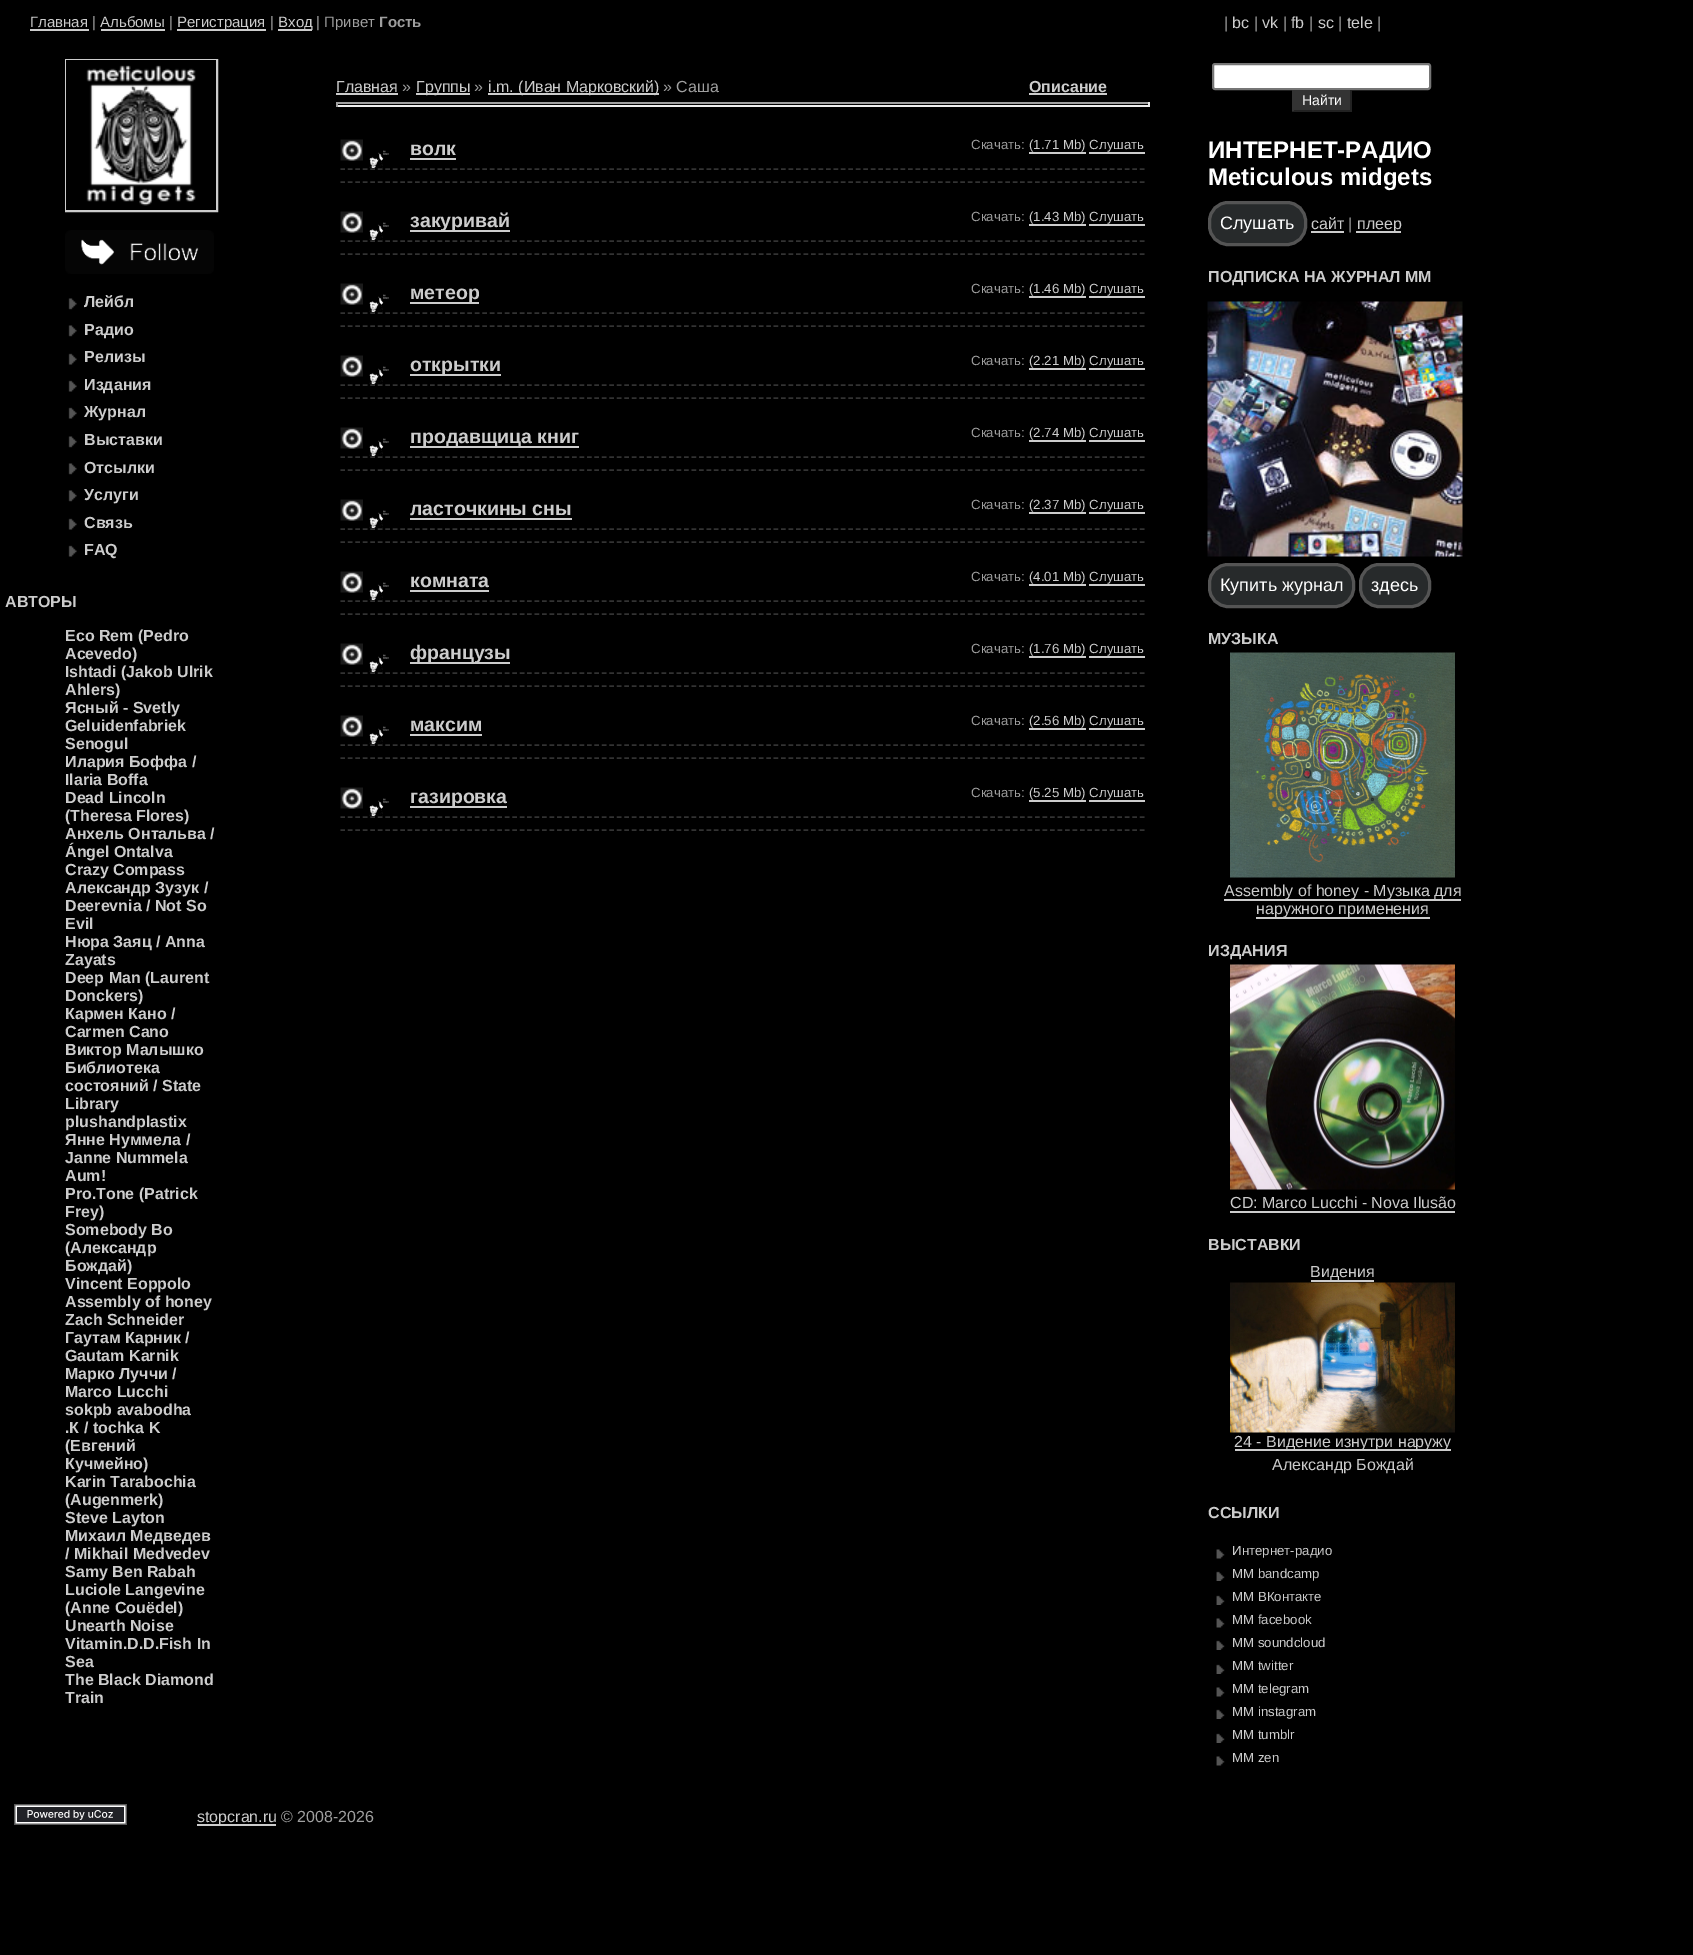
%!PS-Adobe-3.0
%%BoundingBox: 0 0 1693 1955
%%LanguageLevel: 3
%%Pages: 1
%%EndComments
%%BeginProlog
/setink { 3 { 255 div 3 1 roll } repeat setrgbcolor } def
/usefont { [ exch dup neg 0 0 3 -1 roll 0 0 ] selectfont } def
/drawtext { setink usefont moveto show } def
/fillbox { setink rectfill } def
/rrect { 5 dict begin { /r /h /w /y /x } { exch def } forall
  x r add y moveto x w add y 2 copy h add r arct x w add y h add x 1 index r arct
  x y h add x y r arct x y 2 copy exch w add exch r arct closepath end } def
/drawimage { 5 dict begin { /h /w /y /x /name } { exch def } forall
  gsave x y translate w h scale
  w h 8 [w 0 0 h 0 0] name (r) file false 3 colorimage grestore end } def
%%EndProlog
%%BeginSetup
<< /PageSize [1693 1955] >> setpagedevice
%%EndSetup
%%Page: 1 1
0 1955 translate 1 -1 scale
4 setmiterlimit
0 0 1693 1955 0 0 0 fillbox
(Главная) 30 27 /LiberationSans-Regular 15 204 204 204 drawtext
30 29 59 2 204 204 204 fillbox
(|) 92 27 /LiberationSans-Regular 15 159 159 159 drawtext
(Альбомы) 100 27 /LiberationSans-Regular 15 204 204 204 drawtext
101 29 64 2 204 204 204 fillbox
(|) 169 27 /LiberationSans-Regular 15 159 159 159 drawtext
177 29 89 2 204 204 204 fillbox
(Регистрация) 177 27 /LiberationSans-Regular 15 204 204 204 drawtext
(|) 270 27 /LiberationSans-Regular 15 159 159 159 drawtext
278 29 34 2 204 204 204 fillbox
(Вход) 278 27 /LiberationSans-Regular 15 204 204 204 drawtext
(| Привет) 316 27 /LiberationSans-Regular 15 159 159 159 drawtext
(Гость) 379 27 /LiberationSans-Bold 15 159 159 159 drawtext
(|) 1224 28 /LiberationSans-Regular 16 159 159 159 drawtext
(bc) 1232 28 /LiberationSans-Regular 16 204 204 204 drawtext
(|) 1254 28 /LiberationSans-Regular 16 159 159 159 drawtext
(vk) 1262 28 /LiberationSans-Regular 16 204 204 204 drawtext
(|) 1283 28 /LiberationSans-Regular 16 159 159 159 drawtext
(fb) 1291 28 /LiberationSans-Regular 16 204 204 204 drawtext
(|) 1309 28 /LiberationSans-Regular 16 159 159 159 drawtext
(sc) 1318 28 /LiberationSans-Regular 16 204 204 204 drawtext
(|) 1338 28 /LiberationSans-Regular 16 159 159 159 drawtext
(tele) 1347 28 /LiberationSans-Regular 16 204 204 204 drawtext
(|) 1377 28 /LiberationSans-Regular 16 159 159 159 drawtext
204 204 204 setink
2 setlinewidth
66 60 151 151 rectstroke
(assets/img1.rgb) 66 60 150 150 drawimage
(assets/img2.rgb) 65 230 149 44 drawimage
(assets/img3.rgb) 68 298 9 12 drawimage
(Лейбл) 84 307 /LiberationSans-Bold 16 204 204 204 drawtext
(assets/img3.rgb) 68 325 9 12 drawimage
(Радио) 84 335 /LiberationSans-Bold 16 204 204 204 drawtext
(assets/img4.rgb) 68 353 9 12 drawimage
(Релизы) 84 362 /LiberationSans-Bold 16 204 204 204 drawtext
(assets/img4.rgb) 68 380 9 12 drawimage
(Издания) 84 390 /LiberationSans-Bold 16 204 204 204 drawtext
(assets/img4.rgb) 68 407 9 12 drawimage
(Журнал) 84 417 /LiberationSans-Bold 16 204 204 204 drawtext
(assets/img3.rgb) 68 436 9 12 drawimage
(Выставки) 84 445 /LiberationSans-Bold 16 204 204 204 drawtext
(assets/img3.rgb) 68 463 9 12 drawimage
(Отсылки) 84 473 /LiberationSans-Bold 16 204 204 204 drawtext
(assets/img3.rgb) 68 490 9 12 drawimage
(Услуги) 84 500 /LiberationSans-Bold 16 204 204 204 drawtext
(assets/img4.rgb) 68 518 9 12 drawimage
(Связь) 84 528 /LiberationSans-Bold 16 204 204 204 drawtext
(assets/img4.rgb) 68 545 9 12 drawimage
(FAQ) 84 555 /LiberationSans-Bold 16 204 204 204 drawtext
(АВТОРЫ) 5 607 /LiberationSans-Bold 16 204 204 204 drawtext
(Eco Rem \(Pedro) 65 641 /LiberationSans-Bold 16 204 204 204 drawtext
(Acevedo\)) 65 659 /LiberationSans-Bold 16 204 204 204 drawtext
(Ishtadi \(Jakob Ulrik) 65 677 /LiberationSans-Bold 16 204 204 204 drawtext
(Ahlers\)) 65 695 /LiberationSans-Bold 16 204 204 204 drawtext
(Ясный - Svetly) 65 713 /LiberationSans-Bold 16 204 204 204 drawtext
(Geluidenfabriek) 65 731 /LiberationSans-Bold 16 204 204 204 drawtext
(Senogul) 65 749 /LiberationSans-Bold 16 204 204 204 drawtext
(Илария Боффа /) 65 767 /LiberationSans-Bold 16 204 204 204 drawtext
(Ilaria Boffa) 65 785 /LiberationSans-Bold 16 204 204 204 drawtext
(Dead Lincoln) 65 803 /LiberationSans-Bold 16 204 204 204 drawtext
(\(Theresa Flores\)) 65 821 /LiberationSans-Bold 16 204 204 204 drawtext
(Анхель Онтальва /) 65 839 /LiberationSans-Bold 16 204 204 204 drawtext
(Ángel Ontalva) 65 857 /LiberationSans-Bold 16 204 204 204 drawtext
(Crazy Compass) 65 875 /LiberationSans-Bold 16 204 204 204 drawtext
(Александр Зузук /) 65 893 /LiberationSans-Bold 16 204 204 204 drawtext
(Deerevnia / Not So) 65 911 /LiberationSans-Bold 16 204 204 204 drawtext
(Evil) 65 929 /LiberationSans-Bold 16 204 204 204 drawtext
(Нюра Заяц / Anna) 65 947 /LiberationSans-Bold 16 204 204 204 drawtext
(Zayats) 65 965 /LiberationSans-Bold 16 204 204 204 drawtext
(Deep Man \(Laurent) 65 983 /LiberationSans-Bold 16 204 204 204 drawtext
(Donckers\)) 65 1001 /LiberationSans-Bold 16 204 204 204 drawtext
(Кармен Кано /) 65 1019 /LiberationSans-Bold 16 204 204 204 drawtext
(Carmen Cano) 65 1037 /LiberationSans-Bold 16 204 204 204 drawtext
(Виктор Малышко) 65 1055 /LiberationSans-Bold 16 204 204 204 drawtext
(Библиотека) 65 1073 /LiberationSans-Bold 16 204 204 204 drawtext
(состояний / State) 65 1091 /LiberationSans-Bold 16 204 204 204 drawtext
(Library) 65 1109 /LiberationSans-Bold 16 204 204 204 drawtext
(plushandplastix) 65 1127 /LiberationSans-Bold 16 204 204 204 drawtext
(Янне Нуммела /) 65 1145 /LiberationSans-Bold 16 204 204 204 drawtext
(Janne Nummela) 65 1163 /LiberationSans-Bold 16 204 204 204 drawtext
(Aum!) 65 1181 /LiberationSans-Bold 16 204 204 204 drawtext
(Pro.Tone \(Patrick) 65 1199 /LiberationSans-Bold 16 204 204 204 drawtext
(Frey\)) 65 1217 /LiberationSans-Bold 16 204 204 204 drawtext
(Somebody Bo) 65 1235 /LiberationSans-Bold 16 204 204 204 drawtext
(\(Александр) 65 1253 /LiberationSans-Bold 16 204 204 204 drawtext
(Бождай\)) 65 1271 /LiberationSans-Bold 16 204 204 204 drawtext
(Vincent Eoppolo) 65 1289 /LiberationSans-Bold 16 204 204 204 drawtext
(Assembly of honey) 65 1307 /LiberationSans-Bold 16 204 204 204 drawtext
(Zach Schneider) 65 1325 /LiberationSans-Bold 16 204 204 204 drawtext
(Гаутам Карник /) 65 1343 /LiberationSans-Bold 16 204 204 204 drawtext
(Gautam Karnik) 65 1361 /LiberationSans-Bold 16 204 204 204 drawtext
(Марко Луччи /) 65 1379 /LiberationSans-Bold 16 204 204 204 drawtext
(Marco Lucchi) 65 1397 /LiberationSans-Bold 16 204 204 204 drawtext
(sokpb avabodha) 65 1415 /LiberationSans-Bold 16 204 204 204 drawtext
(.К / tochka K) 65 1433 /LiberationSans-Bold 16 204 204 204 drawtext
(\(Евгений) 65 1451 /LiberationSans-Bold 16 204 204 204 drawtext
(Кучмейно\)) 65 1469 /LiberationSans-Bold 16 204 204 204 drawtext
(Karin Tarabochia) 65 1487 /LiberationSans-Bold 16 204 204 204 drawtext
(\(Augenmerk\)) 65 1505 /LiberationSans-Bold 16 204 204 204 drawtext
(Steve Layton) 65 1523 /LiberationSans-Bold 16 204 204 204 drawtext
(Михаил Медведев) 65 1541 /LiberationSans-Bold 16 204 204 204 drawtext
(/ Mikhail Medvedev) 65 1559 /LiberationSans-Bold 16 204 204 204 drawtext
(Samy Ben Rabah) 65 1577 /LiberationSans-Bold 16 204 204 204 drawtext
(Luciole Langevine) 65 1595 /LiberationSans-Bold 16 204 204 204 drawtext
(\(Anne Couëdel\)) 65 1613 /LiberationSans-Bold 16 204 204 204 drawtext
(Unearth Noise) 65 1631 /LiberationSans-Bold 16 204 204 204 drawtext
(Vitamin.D.D.Fish In) 65 1649 /LiberationSans-Bold 16 204 204 204 drawtext
(Sea) 65 1667 /LiberationSans-Bold 16 204 204 204 drawtext
(The Black Diamond) 65 1685 /LiberationSans-Bold 16 204 204 204 drawtext
(Train) 65 1703 /LiberationSans-Bold 16 204 204 204 drawtext
(Главная) 336 92 /LiberationSans-Regular 16 204 204 204 drawtext
336 93 62 2 204 204 204 fillbox
(») 402 92 /LiberationSans-Regular 16 159 159 159 drawtext
416 93 54 2 204 204 204 fillbox
(Группы) 416 92 /LiberationSans-Regular 16 204 204 204 drawtext
(») 474 92 /LiberationSans-Regular 16 159 159 159 drawtext
488 93 171 2 204 204 204 fillbox
(i.m. \(Иван Марковский\)) 488 92 /LiberationSans-Regular 16 204 204 204 drawtext
(» Саша) 663 92 /LiberationSans-Regular 16 159 159 159 drawtext
(Описание) 1029 92 /LiberationSans-Bold 16 204 204 204 drawtext
1029 93 78 2 204 204 204 fillbox
336 102 813 2 159 159 159 fillbox
1148 102 2 5 238 238 238 fillbox
336 105 813 2 238 238 238 fillbox
336 102 2 5 159 159 159 fillbox
(assets/img5.rgb) 340 139 23 22 drawimage
(assets/img6.rgb) 369 150 20 18 drawimage
(волк) 410 155 /LiberationSans-Bold 19.5 204 204 204 drawtext
410 158 46 2 204 204 204 fillbox
(Скачать:) 971 149 /LiberationSans-Regular 13.25 159 159 159 drawtext
(\(1.71 Mb\) Слушать) 1029 149 /LiberationSans-Regular 13.25 204 204 204 drawtext
1029 152 57 2 204 204 204 fillbox
1089 152 56 2 204 204 204 fillbox
51 51 51 setink
1.5 setlinewidth
[4.5 2.97] 0 setdash
340.5 169 moveto 1144.5 169 lineto stroke
340.5 182 moveto 1144.5 182 lineto stroke
(assets/img5.rgb) 340 211 23 22 drawimage
(assets/img6.rgb) 369 222 20 18 drawimage
410 230 100 2 204 204 204 fillbox
(закуривай) 410 227 /LiberationSans-Bold 19.5 204 204 204 drawtext
(Скачать:) 971 221 /LiberationSans-Regular 13.25 159 159 159 drawtext
(\(1.43 Mb\) Слушать) 1029 221 /LiberationSans-Regular 13.25 204 204 204 drawtext
1029 224 57 2 204 204 204 fillbox
1089 224 56 2 204 204 204 fillbox
51 51 51 setink
340.5 241 moveto 1144.5 241 lineto stroke
340.5 254 moveto 1144.5 254 lineto stroke
(assets/img5.rgb) 340 283 23 22 drawimage
(assets/img6.rgb) 369 294 20 18 drawimage
410 302 69 2 204 204 204 fillbox
(метеор) 410 299 /LiberationSans-Bold 19.5 204 204 204 drawtext
(Скачать:) 971 293 /LiberationSans-Regular 13.25 159 159 159 drawtext
(\(1.46 Mb\) Слушать) 1029 293 /LiberationSans-Regular 13.25 204 204 204 drawtext
1029 296 57 2 204 204 204 fillbox
1089 296 56 2 204 204 204 fillbox
51 51 51 setink
340.5 313 moveto 1144.5 313 lineto stroke
340.5 326 moveto 1144.5 326 lineto stroke
(assets/img5.rgb) 340 355 23 22 drawimage
(assets/img6.rgb) 369 366 20 18 drawimage
410 374 91 2 204 204 204 fillbox
(открытки) 410 371 /LiberationSans-Bold 19.5 204 204 204 drawtext
(Скачать:) 971 365 /LiberationSans-Regular 13.25 159 159 159 drawtext
(\(2.21 Mb\) Слушать) 1029 365 /LiberationSans-Regular 13.25 204 204 204 drawtext
1029 368 57 2 204 204 204 fillbox
1089 368 56 2 204 204 204 fillbox
51 51 51 setink
340.5 385 moveto 1144.5 385 lineto stroke
340.5 398 moveto 1144.5 398 lineto stroke
(assets/img5.rgb) 340 427 23 22 drawimage
(assets/img6.rgb) 369 438 20 18 drawimage
410 446 169 2 204 204 204 fillbox
(продавщица книг) 410 443 /LiberationSans-Bold 19.5 204 204 204 drawtext
(Скачать:) 971 437 /LiberationSans-Regular 13.25 159 159 159 drawtext
(\(2.74 Mb\) Слушать) 1029 437 /LiberationSans-Regular 13.25 204 204 204 drawtext
1029 440 57 2 204 204 204 fillbox
1089 440 56 2 204 204 204 fillbox
51 51 51 setink
340.5 457 moveto 1144.5 457 lineto stroke
340.5 470 moveto 1144.5 470 lineto stroke
(assets/img5.rgb) 340 499 23 22 drawimage
(assets/img6.rgb) 369 510 20 18 drawimage
(ласточкины сны) 410 515 /LiberationSans-Bold 19.5 204 204 204 drawtext
410 518 162 2 204 204 204 fillbox
(Скачать:) 971 509 /LiberationSans-Regular 13.25 159 159 159 drawtext
(\(2.37 Mb\) Слушать) 1029 509 /LiberationSans-Regular 13.25 204 204 204 drawtext
1029 512 57 2 204 204 204 fillbox
1089 512 56 2 204 204 204 fillbox
51 51 51 setink
340.5 529 moveto 1144.5 529 lineto stroke
340.5 542 moveto 1144.5 542 lineto stroke
(assets/img5.rgb) 340 571 23 22 drawimage
(assets/img6.rgb) 369 582 20 18 drawimage
(комната) 410 587 /LiberationSans-Bold 19.5 204 204 204 drawtext
410 590 79 2 204 204 204 fillbox
(Скачать:) 971 581 /LiberationSans-Regular 13.25 159 159 159 drawtext
(\(4.01 Mb\) Слушать) 1029 581 /LiberationSans-Regular 13.25 204 204 204 drawtext
1029 584 57 2 204 204 204 fillbox
1089 584 56 2 204 204 204 fillbox
51 51 51 setink
340.5 601 moveto 1144.5 601 lineto stroke
340.5 614 moveto 1144.5 614 lineto stroke
(assets/img5.rgb) 340 643 23 22 drawimage
(assets/img7.rgb) 369 654 20 18 drawimage
410 662 100 2 204 204 204 fillbox
(французы) 410 659 /LiberationSans-Bold 19.5 204 204 204 drawtext
(Скачать:) 971 653 /LiberationSans-Regular 13.25 159 159 159 drawtext
(\(1.76 Mb\) Слушать) 1029 653 /LiberationSans-Regular 13.25 204 204 204 drawtext
1029 656 57 2 204 204 204 fillbox
1089 656 56 2 204 204 204 fillbox
51 51 51 setink
340.5 673 moveto 1144.5 673 lineto stroke
340.5 686 moveto 1144.5 686 lineto stroke
(assets/img5.rgb) 340 715 23 22 drawimage
(assets/img6.rgb) 369 726 20 18 drawimage
(максим) 410 731 /LiberationSans-Bold 19.5 204 204 204 drawtext
410 734 72 2 204 204 204 fillbox
(Скачать:) 971 725 /LiberationSans-Regular 13.25 159 159 159 drawtext
(\(2.56 Mb\) Слушать) 1029 725 /LiberationSans-Regular 13.25 204 204 204 drawtext
1029 728 57 2 204 204 204 fillbox
1089 728 56 2 204 204 204 fillbox
51 51 51 setink
340.5 745 moveto 1144.5 745 lineto stroke
340.5 758 moveto 1144.5 758 lineto stroke
(assets/img5.rgb) 340 787 23 22 drawimage
(assets/img6.rgb) 369 798 20 18 drawimage
410 806 97 2 204 204 204 fillbox
(газировка) 410 803 /LiberationSans-Bold 19.5 204 204 204 drawtext
(Скачать:) 971 797 /LiberationSans-Regular 13.25 159 159 159 drawtext
(\(5.25 Mb\) Слушать) 1029 797 /LiberationSans-Regular 13.25 204 204 204 drawtext
1029 800 57 2 204 204 204 fillbox
1089 800 56 2 204 204 204 fillbox
51 51 51 setink
340.5 817 moveto 1144.5 817 lineto stroke
340.5 830 moveto 1144.5 830 lineto stroke
255 255 255 setink
1213 64 217 25 2 rrect gsave fill grestore
118 118 118 setink
2 setlinewidth
[] 0 setdash
stroke
1294 90 56 20 51 51 51 fillbox
1350 90 2 21 34 34 34 fillbox
1292 110 60 2 34 34 34 fillbox
1292 90 2 21 51 51 51 fillbox
(Найти) 1302 105 /LiberationSans-Regular 14 255 255 255 drawtext
(ИНТЕРНЕТ-РАДИО) 1208 158 /LiberationSans-Bold 24 255 255 255 drawtext
(Meticulous midgets) 1208 185 /LiberationSans-Bold 24 255 255 255 drawtext
39 42 43 setink
1209.5 202.5 96 42 18.5 rrect gsave fill grestore
84 84 84 setink
3 setlinewidth
stroke
(Слушать) 1220 229 /LiberationSans-Regular 18 255 255 255 drawtext
(сайт) 1311 229 /LiberationSans-Regular 16 204 204 204 drawtext
1311 231 33 2 204 204 204 fillbox
(|) 1348 229 /LiberationSans-Regular 16 159 159 159 drawtext
1356 231 45 2 204 204 204 fillbox
(плеер) 1357 229 /LiberationSans-Regular 16 204 204 204 drawtext
(ПОДПИСКА НА ЖУРНАЛ ММ) 1208 282 /LiberationSans-Bold 16 204 204 204 drawtext
(assets/img8.rgb) 1207 301 256 256 drawimage
39 42 43 setink
1209.5 564.5 144 42 18.5 rrect gsave fill grestore
84 84 84 setink
stroke
(Купить журнал) 1220 591 /LiberationSans-Regular 18 255 255 255 drawtext
39 42 43 setink
1360.5 564.5 69 42 18.5 rrect gsave fill grestore
84 84 84 setink
stroke
(здесь) 1371 591 /LiberationSans-Regular 18 255 255 255 drawtext
(МУЗЫКА) 1208 644 /LiberationSans-Bold 16 204 204 204 drawtext
(assets/img9.rgb) 1230 652 225 226 drawimage
1224 899 237 2 204 204 204 fillbox
(Assembly of honey - Музыка для) 1224 896 /LiberationSans-Regular 16 204 204 204 drawtext
1256 917 174 2 204 204 204 fillbox
(наружного применения) 1256 914 /LiberationSans-Regular 16 204 204 204 drawtext
(ИЗДАНИЯ) 1208 956 /LiberationSans-Bold 16 204 204 204 drawtext
(assets/img10.rgb) 1230 964 225 226 drawimage
(CD: Marco Lucchi - Nova Ilusão) 1230 1208 /LiberationSans-Regular 16 204 204 204 drawtext
1230 1211 225 2 204 204 204 fillbox
(ВЫСТАВКИ) 1208 1250 /LiberationSans-Bold 16 204 204 204 drawtext
1311 1280 63 2 204 204 204 fillbox
(Видения) 1310 1277 /LiberationSans-Regular 16 204 204 204 drawtext
(assets/img11.rgb) 1230 1282 225 151 drawimage
1235 1449 216 2 204 204 204 fillbox
(24 - Видение изнутри наружу) 1234 1447 /LiberationSans-Regular 16 204 204 204 drawtext
(Александр Бождай) 1272 1470 /LiberationSans-Regular 16 204 204 204 drawtext
(ССЫЛКИ) 1208 1518 /LiberationSans-Bold 16 204 204 204 drawtext
(assets/img12.rgb) 1216 1549 9 10 drawimage
(Интернет-радио) 1232 1555 /LiberationSans-Regular 13.25 204 204 204 drawtext
(assets/img13.rgb) 1216 1571 9 10 drawimage
(MM bandcamp) 1232 1578 /LiberationSans-Regular 13.25 204 204 204 drawtext
(assets/img13.rgb) 1216 1595 9 10 drawimage
(MM ВКонтакте) 1232 1601 /LiberationSans-Regular 13.25 204 204 204 drawtext
(assets/img12.rgb) 1216 1618 9 10 drawimage
(MM facebook) 1232 1624 /LiberationSans-Regular 13.25 204 204 204 drawtext
(assets/img13.rgb) 1216 1640 9 10 drawimage
(MM soundcloud) 1232 1647 /LiberationSans-Regular 13.25 204 204 204 drawtext
(assets/img13.rgb) 1216 1664 9 10 drawimage
(MM twitter) 1232 1670 /LiberationSans-Regular 13.25 204 204 204 drawtext
(assets/img12.rgb) 1216 1687 9 10 drawimage
(MM telegram) 1232 1693 /LiberationSans-Regular 13.25 204 204 204 drawtext
(assets/img13.rgb) 1216 1709 9 10 drawimage
(MM instagram) 1232 1716 /LiberationSans-Regular 13.25 204 204 204 drawtext
(assets/img13.rgb) 1216 1733 9 10 drawimage
(MM tumblr) 1232 1739 /LiberationSans-Regular 13.25 204 204 204 drawtext
(assets/img12.rgb) 1216 1756 9 10 drawimage
(MM zen) 1232 1762 /LiberationSans-Regular 13.25 204 204 204 drawtext
(assets/img14.rgb) 14 1804 113 21 drawimage
197 1824 79 2 204 204 204 fillbox
(stopcran.ru) 197 1822 /LiberationSans-Regular 16 204 204 204 drawtext
(© 2008-2026) 281 1822 /LiberationSans-Regular 16 159 159 159 drawtext
showpage
%%EOF
